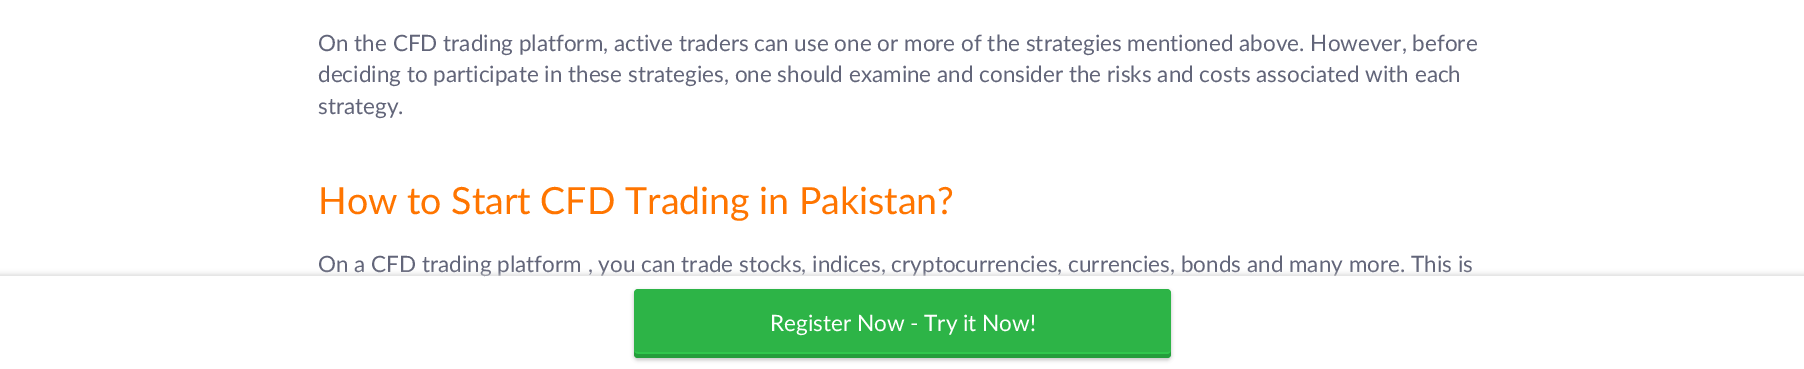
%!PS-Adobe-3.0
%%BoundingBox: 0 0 1804 369
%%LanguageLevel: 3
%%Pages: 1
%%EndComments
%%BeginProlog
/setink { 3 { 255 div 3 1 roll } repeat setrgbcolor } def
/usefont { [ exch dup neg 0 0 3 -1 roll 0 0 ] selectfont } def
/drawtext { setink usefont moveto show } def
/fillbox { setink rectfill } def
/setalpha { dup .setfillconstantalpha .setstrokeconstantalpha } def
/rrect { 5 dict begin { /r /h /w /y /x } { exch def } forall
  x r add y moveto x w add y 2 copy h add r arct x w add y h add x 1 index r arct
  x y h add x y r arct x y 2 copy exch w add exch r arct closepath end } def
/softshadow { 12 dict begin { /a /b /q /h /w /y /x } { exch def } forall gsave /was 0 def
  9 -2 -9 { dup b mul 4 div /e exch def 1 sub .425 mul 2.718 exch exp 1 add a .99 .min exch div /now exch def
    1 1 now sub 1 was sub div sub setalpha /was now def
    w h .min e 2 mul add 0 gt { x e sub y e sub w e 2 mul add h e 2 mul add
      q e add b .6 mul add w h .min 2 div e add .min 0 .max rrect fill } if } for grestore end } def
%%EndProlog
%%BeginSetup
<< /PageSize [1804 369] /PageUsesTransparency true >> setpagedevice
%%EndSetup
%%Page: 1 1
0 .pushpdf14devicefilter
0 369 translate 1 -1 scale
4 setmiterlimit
0 0 1804 369 255 255 255 fillbox
(On the CFD trading platform, active traders can use one or more of the strategies mentioned above. However, before) 318 51 /Lato-Regular 22.5 98 101 121 drawtext
(deciding to participate in these strategies, one should examine and consider the risks and costs associated with each) 318 82 /Lato-Regular 22.5 98 101 121 drawtext
(strategy.) 318 114 /Lato-Regular 22.5 98 101 121 drawtext
(How to Start CFD Trading in Pakistan?) 318 214 /Lato-Regular 37.5 255 117 0 drawtext
(On a CFD trading platform , you can trade stocks, indices, cryptocurrencies, currencies, bonds and many more. This is) 318 272 /Lato-Regular 22.5 98 101 121 drawtext
485 276 2 1 255 255 255 fillbox
gsave
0 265 moveto 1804 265 lineto 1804 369 lineto 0 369 lineto closepath 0 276 moveto 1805 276 lineto 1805 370 lineto 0 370 lineto closepath eoclip newpath
209 209 209 setink
-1 275 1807 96 0 3 1 softshadow
grestore
0 0 0 setink
634 291 537 69 4 2 0.23 softshadow
45 180 71 setink
634 289 537 69 4 rrect fill
48 198 77 setink
634 349 moveto 634 354 lineto 634 356 636 358 638 358 curveto 1167 358 lineto 1169 358 1171 356 1171 354 curveto 1171 349 lineto 1171 351 1170 352 1168 352 curveto 638 352 lineto 635 352 634 351 634 349 curveto closepath fill
36 157 59 setink
634 350 moveto 634 354 lineto 634 356 636 358 638 358 curveto 1167 358 lineto 1169 358 1171 356 1171 354 curveto 1171 350 lineto 1171 352 1170 354 1168 354 curveto 638 354 lineto 635 354 634 352 634 350 curveto closepath fill
(Register Now - Try it Now!) 770 331 /Lato-Regular 22.5 255 255 255 drawtext
.poppdf14devicefilter showpage
%%EOF
